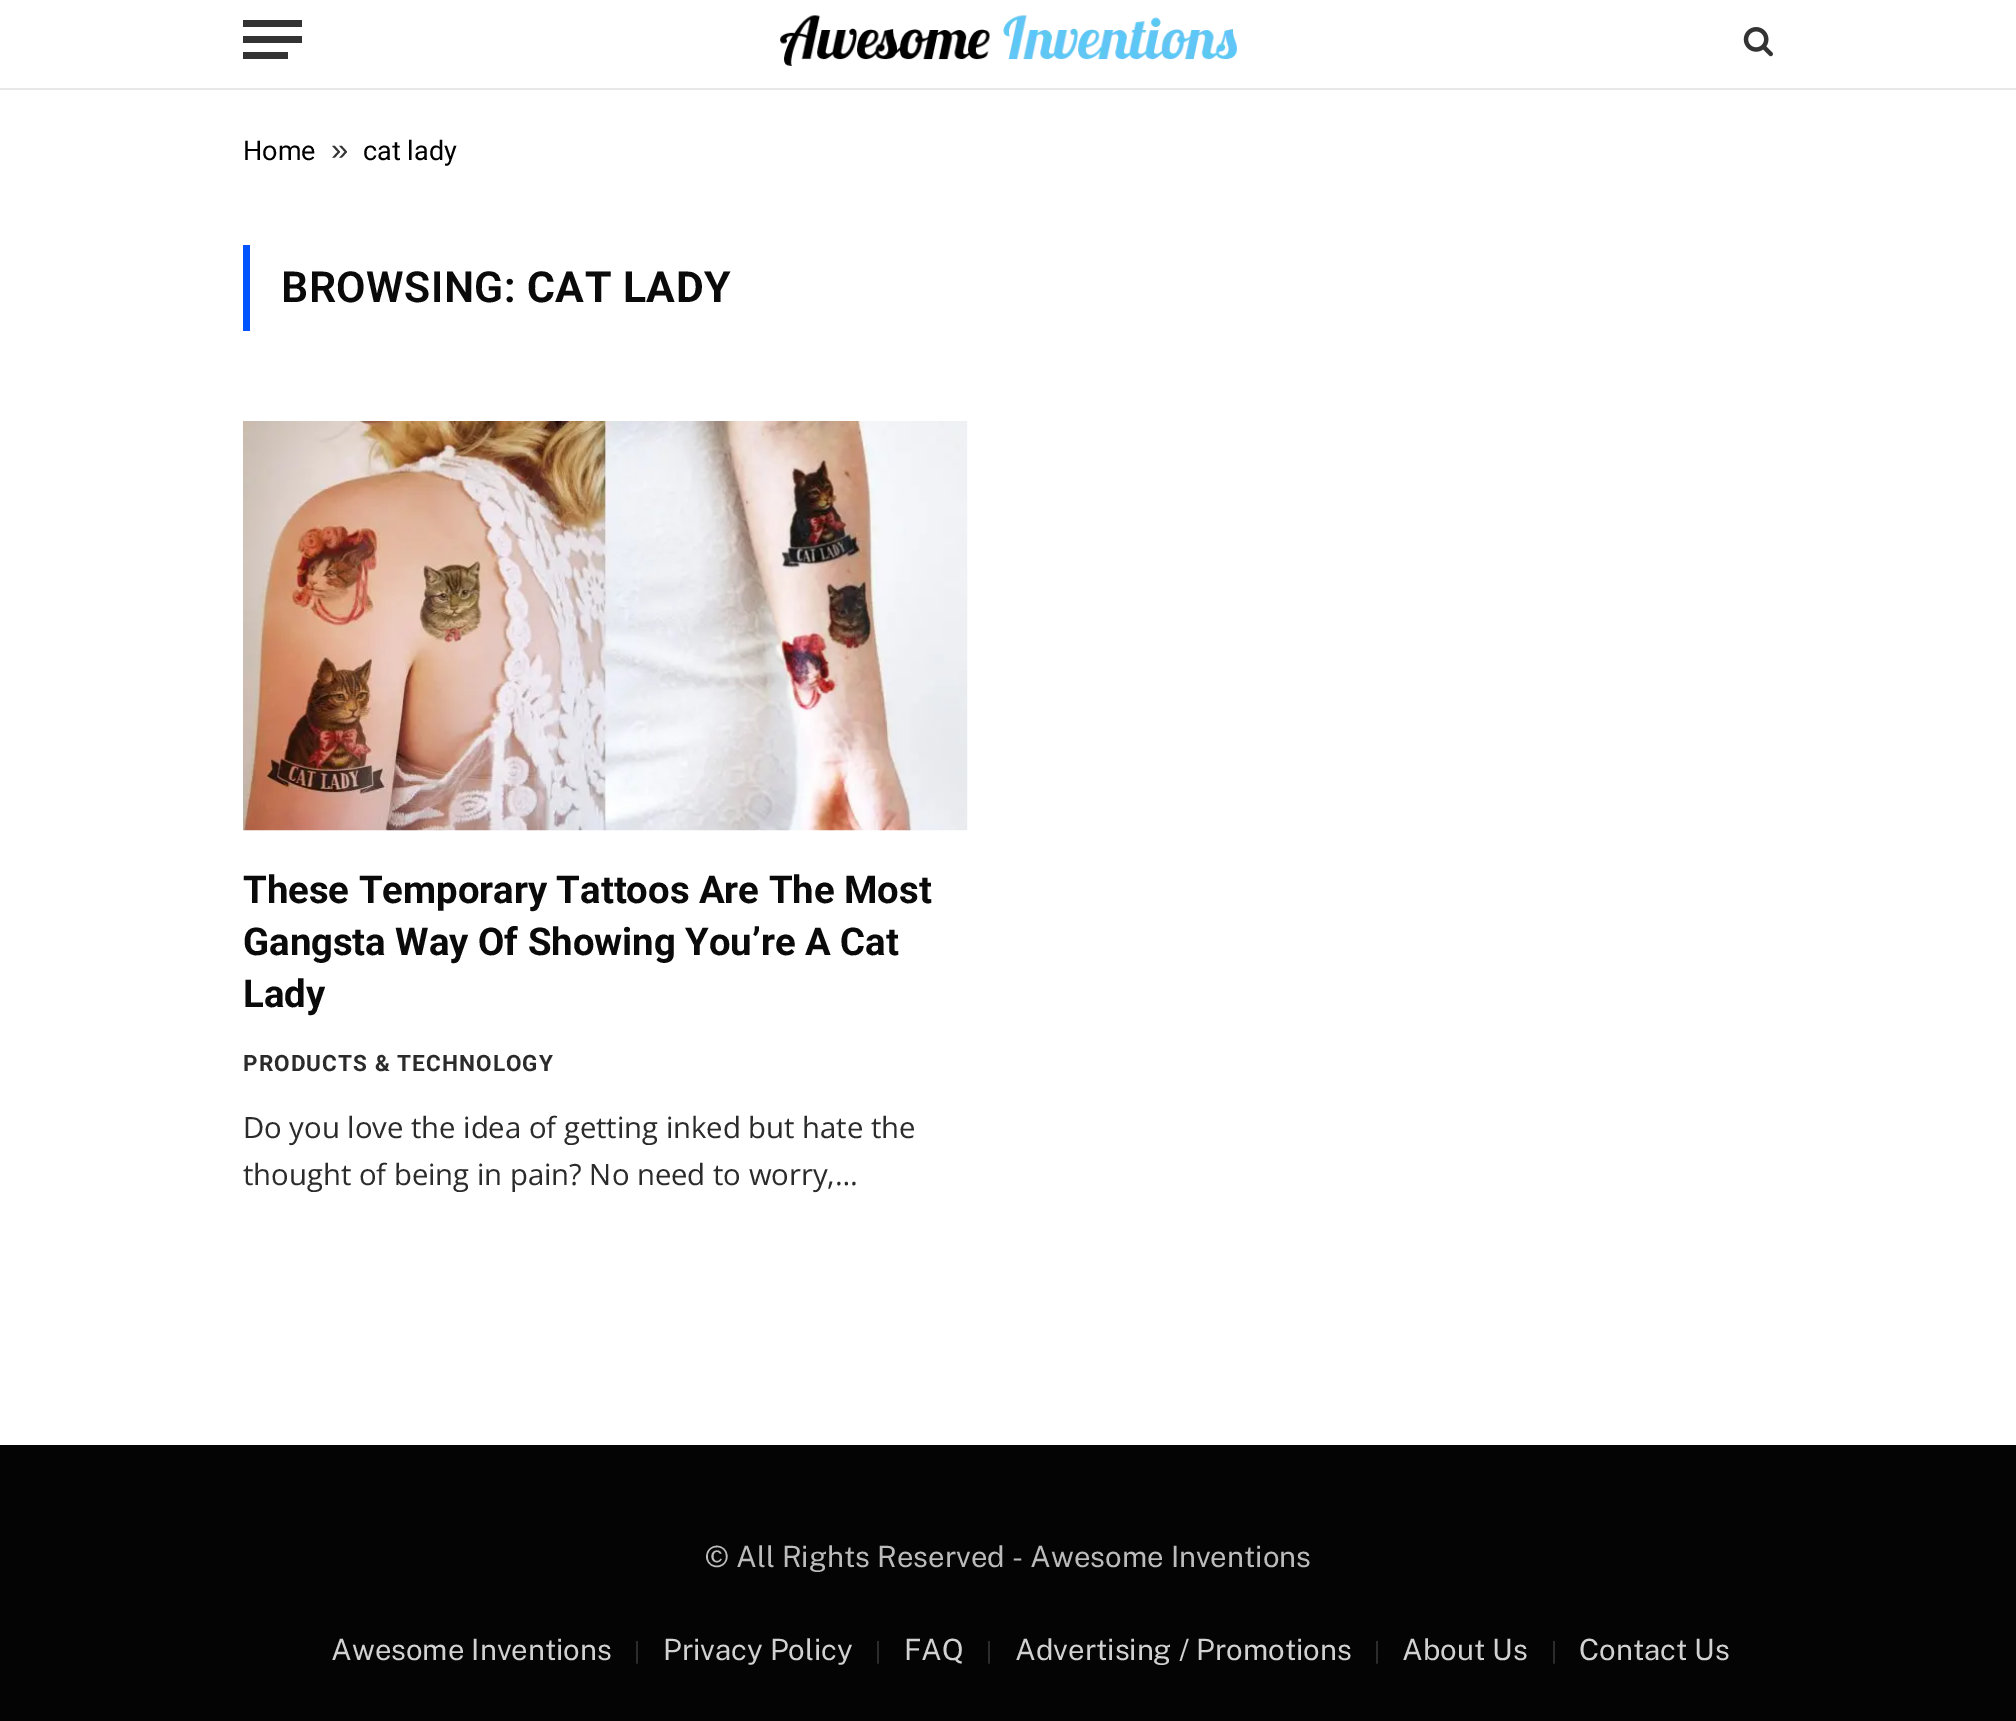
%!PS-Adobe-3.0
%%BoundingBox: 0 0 2016 1721
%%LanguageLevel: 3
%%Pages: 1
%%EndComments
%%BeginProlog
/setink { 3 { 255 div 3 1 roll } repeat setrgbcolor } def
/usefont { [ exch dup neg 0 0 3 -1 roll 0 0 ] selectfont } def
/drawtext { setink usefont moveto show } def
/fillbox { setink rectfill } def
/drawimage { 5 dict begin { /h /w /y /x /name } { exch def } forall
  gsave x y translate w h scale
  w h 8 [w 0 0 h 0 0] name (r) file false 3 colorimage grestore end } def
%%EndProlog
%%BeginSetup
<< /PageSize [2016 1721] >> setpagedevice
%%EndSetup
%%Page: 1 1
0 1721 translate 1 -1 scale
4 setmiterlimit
0 0 2016 1721 255 255 255 fillbox
0 88 2016 2 232 232 232 fillbox
243 52 45 7 51 51 51 fillbox
243 20 59 7 51 51 51 fillbox
243 36 59 7 51 51 51 fillbox
(assets/img1.rgb) 780 15 457 51 drawimage
(assets/img2.rgb) 1743 27 30 30 drawimage
(Home) 243 160 /Roboto-Regular 27 0 0 0 drawtext
(») 331 160 /LiberationSans-Regular 31 51 51 51 drawtext
(cat lady) 363 160 /Roboto-Regular 27 0 0 0 drawtext
243 245 7 86 0 84 255 fillbox
/Roboto-SemiBold 42.75 usefont
10 10 10 setink
281 302 moveto 0.5 0 (BROWSING:) ashow
/Roboto-Bold 42.75 usefont
527 302 moveto 0.5 0 (CAT LADY) ashow
(assets/img3.rgb) 243 421 725 410 drawimage
(These Temporary Tattoos Are The Most) 243 903 /Roboto-Bold 38.25 10 10 10 drawtext
(Gangsta Way Of Showing You’re A Cat) 243 955 /Roboto-Bold 38.25 10 10 10 drawtext
(Lady) 243 1007 /Roboto-Bold 38.25 10 10 10 drawtext
/Roboto-Bold 22.5 usefont
43 43 43 setink
243 1071 moveto 1.1 0 (PRODUCTS & TECHNOLOGY) ashow
(Do you love the idea of getting inked but hate the) 243 1138 /OpenSans-Regular 29.25 43 43 43 drawtext
(thought of being in pain? No need to worry,…) 243 1185 /OpenSans-Regular 29.25 43 43 43 drawtext
0 1445 2016 276 4 4 4 fillbox
(© All Rights Reserved - Awesome Inventions) 705 1567 /PublicSans-Regular 29.25 187 187 187 drawtext
(Awesome Inventions) 331 1660 /PublicSans-Regular 29.25 209 209 209 drawtext
(|) 634 1660 /PublicSans-Regular 23 59 59 59 drawtext
(Privacy Policy) 663 1660 /PublicSans-Regular 29.25 209 209 209 drawtext
(|) 875 1660 /PublicSans-Regular 23 59 59 59 drawtext
(FAQ) 904 1660 /PublicSans-Regular 29.25 209 209 209 drawtext
(|) 986 1660 /PublicSans-Regular 23 59 59 59 drawtext
(Advertising / Promotions) 1015 1660 /PublicSans-Regular 29.25 209 209 209 drawtext
(|) 1374 1660 /PublicSans-Regular 23 59 59 59 drawtext
(About Us) 1402 1660 /PublicSans-Regular 29.25 209 209 209 drawtext
(|) 1551 1660 /PublicSans-Regular 23 59 59 59 drawtext
(Contact Us) 1579 1660 /PublicSans-Regular 29.25 209 209 209 drawtext
showpage
%%EOF
